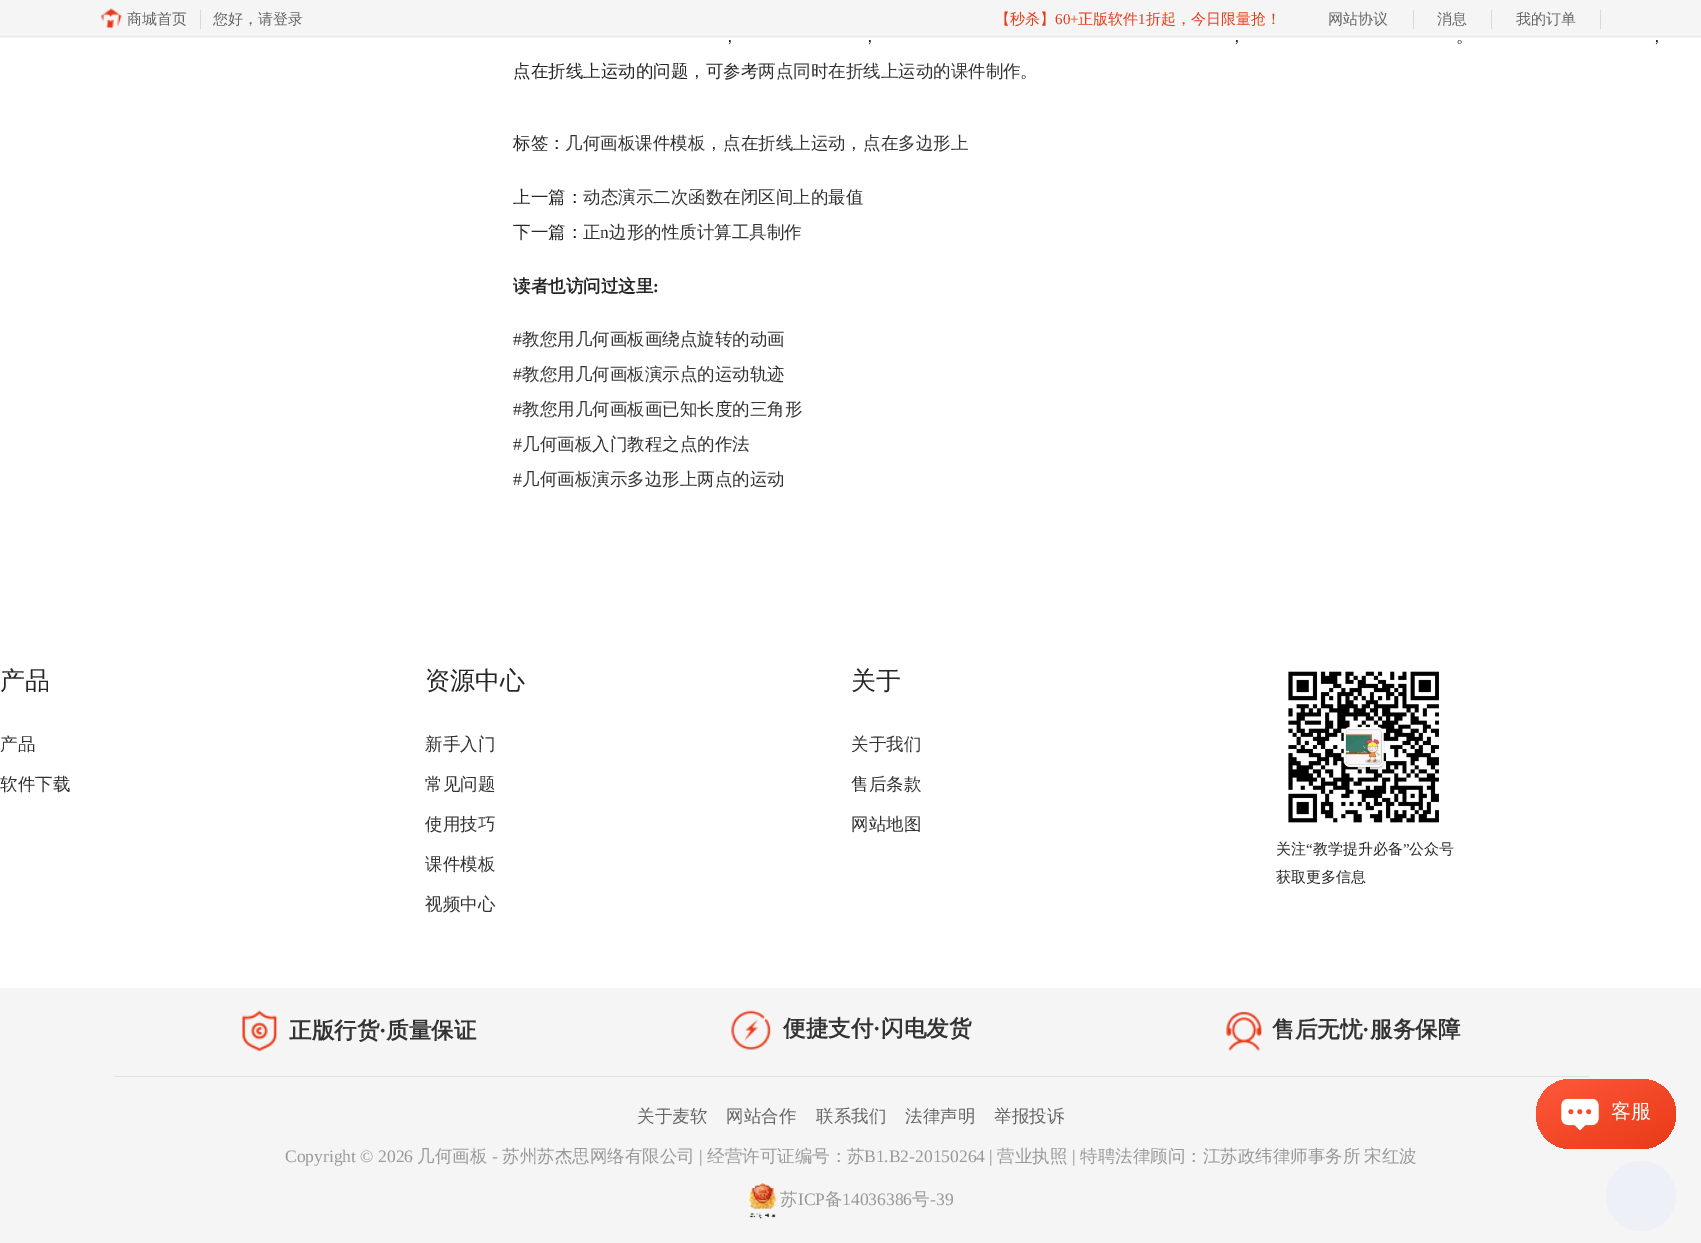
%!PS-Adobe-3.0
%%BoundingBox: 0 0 1701 1243
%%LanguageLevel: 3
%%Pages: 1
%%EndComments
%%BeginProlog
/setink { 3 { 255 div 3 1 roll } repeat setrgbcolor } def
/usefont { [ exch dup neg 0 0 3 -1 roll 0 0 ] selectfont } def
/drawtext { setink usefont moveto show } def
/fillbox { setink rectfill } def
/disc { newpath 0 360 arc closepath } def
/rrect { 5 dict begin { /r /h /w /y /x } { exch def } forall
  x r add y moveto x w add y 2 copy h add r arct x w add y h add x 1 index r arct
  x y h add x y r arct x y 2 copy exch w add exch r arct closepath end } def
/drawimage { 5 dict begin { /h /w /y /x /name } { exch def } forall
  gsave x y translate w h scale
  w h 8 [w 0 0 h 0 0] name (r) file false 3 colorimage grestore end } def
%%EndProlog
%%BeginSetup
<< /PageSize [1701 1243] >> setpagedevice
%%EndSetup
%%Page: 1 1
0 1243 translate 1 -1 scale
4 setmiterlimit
0 0 1701 1243 255 255 255 fillbox
0 0 1701 38 245 245 245 fillbox
0 36 1701 1 233 233 231 fillbox
(assets/img1.rgb) 101 8 21 20 drawimage
(商城首页) 127 24 /WenQuanYiZenHei-Medium 15 102 102 102 drawtext
200 10 1 19 217 217 217 fillbox
(您好，请登录) 213 24 /WenQuanYiZenHei-Medium 15 102 102 102 drawtext
(【秒杀】) 995 24 /WenQuanYiZenHei-Medium 15 232 58 23 drawtext
(60+) 1055 24 /LiberationSerif-Regular 15 232 58 23 drawtext
(正版软件) 1078 24 /WenQuanYiZenHei-Medium 15 232 58 23 drawtext
(1) 1138 24 /LiberationSerif-Regular 15 232 58 23 drawtext
(折起，今日限量抢！) 1146 24 /WenQuanYiZenHei-Medium 15 232 58 23 drawtext
(网站协议) 1328 24 /WenQuanYiZenHei-Medium 15 102 102 102 drawtext
1413 10 1 19 217 217 217 fillbox
(消息) 1437 24 /WenQuanYiZenHei-Medium 15 102 102 102 drawtext
1491 10 1 19 217 217 217 fillbox
(我的订单) 1516 24 /WenQuanYiZenHei-Medium 15 102 102 102 drawtext
1600 10 1 19 217 217 217 fillbox
(，) 721 42 /WenQuanYiZenHei-Medium 17.5 38 38 38 drawtext
(，) 861 42 /WenQuanYiZenHei-Medium 17.5 38 38 38 drawtext
(，) 1228 42 /WenQuanYiZenHei-Medium 17.5 38 38 38 drawtext
(。) 1456 42 /WenQuanYiZenHei-Medium 17.5 38 38 38 drawtext
(，) 1648 42 /WenQuanYiZenHei-Medium 17.5 38 38 38 drawtext
(点在折线上运动的问题，可参考) 513 77 /WenQuanYiZenHei-Medium 17.5 38 38 38 drawtext
(两点同时在折线上运动的课件制作) 758 77 /WenQuanYiZenHei-Medium 17.5 51 51 51 drawtext
(。) 1020 77 /WenQuanYiZenHei-Medium 17.5 38 38 38 drawtext
(标签：) 513 149 /WenQuanYiZenHei-Medium 17.5 38 38 38 drawtext
(几何画板课件模板) 565 149 /WenQuanYiZenHei-Medium 17.5 51 51 51 drawtext
(，) 705 149 /WenQuanYiZenHei-Medium 17.5 38 38 38 drawtext
(点在折线上运动) 723 149 /WenQuanYiZenHei-Medium 17.5 51 51 51 drawtext
(，) 845 149 /WenQuanYiZenHei-Medium 17.5 38 38 38 drawtext
(点在多边形上) 863 149 /WenQuanYiZenHei-Medium 17.5 51 51 51 drawtext
(上一篇：) 513 203 /WenQuanYiZenHei-Medium 17.5 38 38 38 drawtext
(动态演示二次函数在闭区间上的最值) 583 203 /WenQuanYiZenHei-Medium 17.5 51 51 51 drawtext
(下一篇：) 513 238 /WenQuanYiZenHei-Medium 17.5 38 38 38 drawtext
(正) 583 238 /WenQuanYiZenHei-Medium 17.5 51 51 51 drawtext
(n) 600 238 /LiberationSerif-Regular 17.5 51 51 51 drawtext
(边形的性质计算工具制作) 609 238 /WenQuanYiZenHei-Medium 17.5 51 51 51 drawtext
(读者也访问过这里) 513 292 /WenQuanYiZenHei-Bold 17.5 38 38 38 drawtext
(:) 653 292 /LiberationSerif-Bold 17.5 38 38 38 drawtext
(#) 513 345 /LiberationSerif-Regular 17.5 51 51 51 drawtext
(教您用几何画板画绕点旋转的动画) 522 345 /WenQuanYiZenHei-Medium 17.5 51 51 51 drawtext
(#) 513 380 /LiberationSerif-Regular 17.5 51 51 51 drawtext
(教您用几何画板演示点的运动轨迹) 522 380 /WenQuanYiZenHei-Medium 17.5 51 51 51 drawtext
(#) 513 415 /LiberationSerif-Regular 17.5 51 51 51 drawtext
(教您用几何画板画已知长度的三角形) 522 415 /WenQuanYiZenHei-Medium 17.5 51 51 51 drawtext
(#) 513 450 /LiberationSerif-Regular 17.5 51 51 51 drawtext
(几何画板入门教程之点的作法) 522 450 /WenQuanYiZenHei-Medium 17.5 51 51 51 drawtext
(#) 513 485 /LiberationSerif-Regular 17.5 51 51 51 drawtext
(几何画板演示多边形上两点的运动) 522 485 /WenQuanYiZenHei-Medium 17.5 51 51 51 drawtext
(产品) 0 689 /WenQuanYiZenHei-Medium 25 38 38 38 drawtext
(产品) 0 750 /WenQuanYiZenHei-Medium 17.5 51 51 51 drawtext
(软件下载) 0 790 /WenQuanYiZenHei-Medium 17.5 51 51 51 drawtext
(资源中心) 425 689 /WenQuanYiZenHei-Medium 25 38 38 38 drawtext
(新手入门) 425 750 /WenQuanYiZenHei-Medium 17.5 51 51 51 drawtext
(常见问题) 425 790 /WenQuanYiZenHei-Medium 17.5 51 51 51 drawtext
(使用技巧) 425 830 /WenQuanYiZenHei-Medium 17.5 51 51 51 drawtext
(课件模板) 425 870 /WenQuanYiZenHei-Medium 17.5 51 51 51 drawtext
(视频中心) 425 910 /WenQuanYiZenHei-Medium 17.5 51 51 51 drawtext
(关于) 851 689 /WenQuanYiZenHei-Medium 25 38 38 38 drawtext
(关于我们) 851 750 /WenQuanYiZenHei-Medium 17.5 51 51 51 drawtext
(售后条款) 851 790 /WenQuanYiZenHei-Medium 17.5 51 51 51 drawtext
(网站地图) 851 830 /WenQuanYiZenHei-Medium 17.5 51 51 51 drawtext
(assets/img2.rgb) 1288 671 151 152 drawimage
(关注) 1276 854 /WenQuanYiZenHei-Medium 15 38 38 38 drawtext
(“) 1306 854 /LiberationSerif-Regular 15 38 38 38 drawtext
(教学提升必备) 1313 854 /WenQuanYiZenHei-Medium 15 38 38 38 drawtext
(”) 1403 854 /LiberationSerif-Regular 15 38 38 38 drawtext
(公众号) 1409 854 /WenQuanYiZenHei-Medium 15 38 38 38 drawtext
(获取更多信息) 1276 882 /WenQuanYiZenHei-Medium 15 38 38 38 drawtext
0 988 1701 255 245 245 245 fillbox
114 1076 1475 1 224 224 224 fillbox
(assets/img3.rgb) 242 1010 36 41 drawimage
(正版行货) 289 1038 /WenQuanYiZenHei-Bold 22.5 51 51 51 drawtext
(·) 379 1038 /LiberationSerif-Bold 22.5 51 51 51 drawtext
(质量保证) 386 1038 /WenQuanYiZenHei-Bold 22.5 51 51 51 drawtext
(assets/img4.rgb) 731 1010 40 40 drawimage
(便捷支付) 783 1036 /WenQuanYiZenHei-Bold 22.5 51 51 51 drawtext
(·) 873 1036 /LiberationSerif-Bold 22.5 51 51 51 drawtext
(闪电发货) 881 1036 /WenQuanYiZenHei-Bold 22.5 51 51 51 drawtext
(assets/img5.rgb) 1226 1011 36 40 drawimage
(售后无忧) 1272 1037 /WenQuanYiZenHei-Bold 22.5 51 51 51 drawtext
(·) 1362 1037 /LiberationSerif-Bold 22.5 51 51 51 drawtext
(服务保障) 1370 1037 /WenQuanYiZenHei-Bold 22.5 51 51 51 drawtext
(关于麦软) 637 1122 /WenQuanYiZenHei-Medium 17.5 102 102 102 drawtext
(网站合作) 726 1122 /WenQuanYiZenHei-Medium 17.5 102 102 102 drawtext
(联系我们) 816 1122 /WenQuanYiZenHei-Medium 17.5 102 102 102 drawtext
(法律声明) 905 1122 /WenQuanYiZenHei-Medium 17.5 102 102 102 drawtext
(举报投诉) 994 1122 /WenQuanYiZenHei-Medium 17.5 102 102 102 drawtext
(Copyright © 2026) 285 1162 /LiberationSerif-Regular 17.5 153 153 153 drawtext
(几何画板) 417 1162 /WenQuanYiZenHei-Medium 17.5 153 153 153 drawtext
(-) 492 1162 /LiberationSerif-Regular 17.5 153 153 153 drawtext
(苏州苏杰思网络有限公司) 502 1162 /WenQuanYiZenHei-Medium 17.5 153 153 153 drawtext
(|) 699 1162 /LiberationSerif-Regular 17.5 153 153 153 drawtext
(经营许可证编号：苏) 707 1162 /WenQuanYiZenHei-Medium 17.5 153 153 153 drawtext
(B1.B2-20150264 |) 864 1162 /LiberationSerif-Regular 17.5 153 153 153 drawtext
(营业执照) 997 1162 /WenQuanYiZenHei-Medium 17.5 153 153 153 drawtext
(|) 1072 1162 /LiberationSerif-Regular 17.5 153 153 153 drawtext
/WenQuanYiZenHei-Medium 17.5 usefont
1080 1162 moveto -1 0 32 (特聘法律顾问：江苏政纬律师事务所 宋红波) widthshow
(assets/img6.rgb) 748 1183 29 36 drawimage
(苏) 780 1205 /WenQuanYiZenHei-Medium 17.5 153 153 153 drawtext
(ICP) 798 1205 /LiberationSerif-Regular 17.5 153 153 153 drawtext
(备) 825 1205 /WenQuanYiZenHei-Medium 17.5 153 153 153 drawtext
(14036386) 842 1205 /LiberationSerif-Regular 17.5 153 153 153 drawtext
(号) 912 1205 /WenQuanYiZenHei-Medium 17.5 153 153 153 drawtext
(-39) 930 1205 /LiberationSerif-Regular 17.5 153 153 153 drawtext
gsave 1536 1079 140 70 35 rrect clip newpath
<< /ShadingType 2 /ColorSpace /DeviceRGB /Coords [1634 1170 1578 1058] /Extend [true true] /Function << /FunctionType 2 /Domain [0 1] /C0 [0.91 0.227 0.09] /C1 [1 0.345 0.231] /N 1 >> >> shfill grestore
(assets/img7.rgb) 1561 1098 38 32 drawimage
(客服) 1611 1118 /WenQuanYiZenHei-Medium 20 255 255 255 drawtext
237 240 246 setink
1641 1196 35 disc fill
showpage
%%EOF
